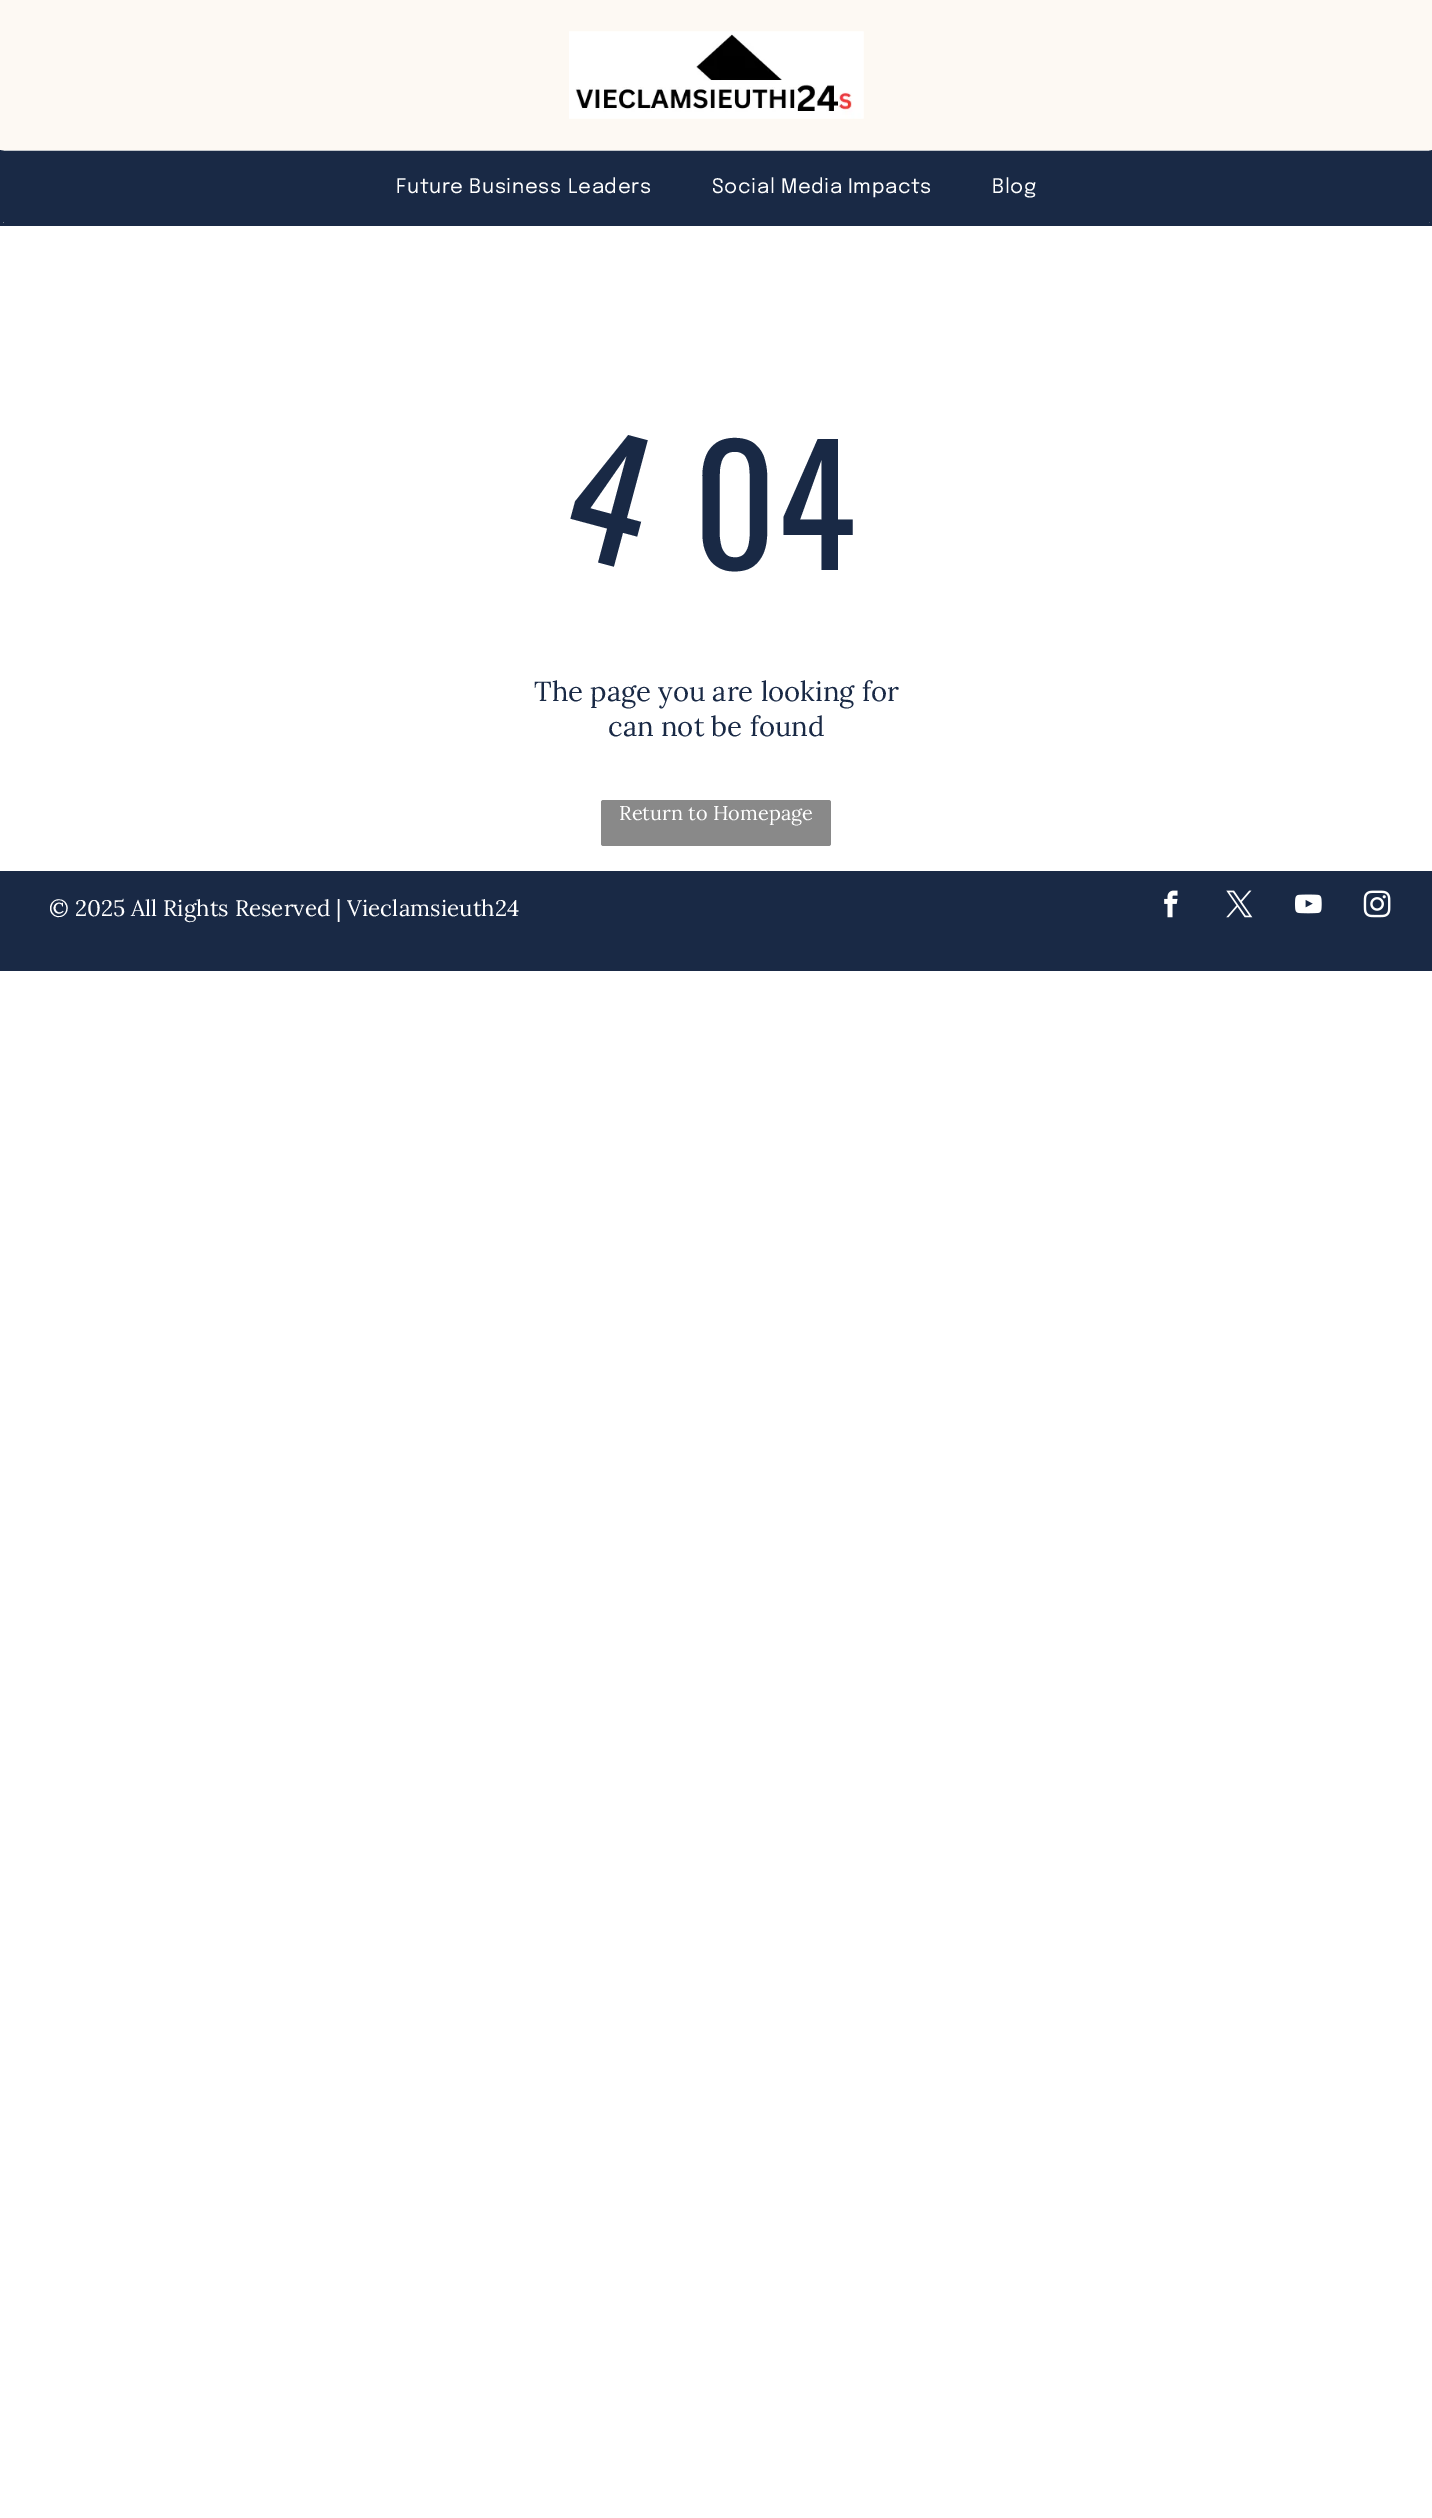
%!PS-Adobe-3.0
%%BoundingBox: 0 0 1432 2518
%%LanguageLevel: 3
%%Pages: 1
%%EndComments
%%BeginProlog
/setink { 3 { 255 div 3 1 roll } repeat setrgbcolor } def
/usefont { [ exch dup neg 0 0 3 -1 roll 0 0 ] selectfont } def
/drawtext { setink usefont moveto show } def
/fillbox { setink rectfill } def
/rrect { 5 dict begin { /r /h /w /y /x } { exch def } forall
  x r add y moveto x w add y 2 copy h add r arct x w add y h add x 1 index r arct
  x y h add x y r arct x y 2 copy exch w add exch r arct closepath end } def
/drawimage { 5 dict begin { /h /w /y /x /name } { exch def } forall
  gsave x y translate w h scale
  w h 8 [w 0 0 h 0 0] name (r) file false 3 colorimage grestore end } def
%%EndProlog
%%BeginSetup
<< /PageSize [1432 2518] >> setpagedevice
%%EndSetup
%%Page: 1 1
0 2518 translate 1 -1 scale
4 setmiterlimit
0 0 1432 2518 255 255 255 fillbox
0 0 1432 223 253 249 243 fillbox
(assets/img1.rgb) 569 31 295 88 drawimage
4 151 1425 72 25 41 69 fillbox
192 196 201 setink
0 150 moveto 1432 150 lineto 1429 151 lineto 4 151 lineto closepath fill
25 41 69 setink
1432 150 moveto 1432 226 lineto 1429 222 lineto 1429 151 lineto closepath fill
0 223 1432 3 25 41 69 fillbox
0 226 moveto 0 150 lineto 4 151 lineto 4 222 lineto closepath fill
/Epilogue-Regular 20 usefont
255 255 255 setink
396 193 moveto 0.6 0 (Future Business Leaders) ashow
712 193 moveto 0.6 0 (Social Media Impacts) ashow
992 193 moveto 0.6 0 (Blog) ashow
/Oswald-Regular 162 usefont
25 41 69 setink
gsave 555 551 translate 15 rotate 0 0 moveto (4) show grestore
(04) 693 570 /Oswald-Regular 162 25 41 69 drawtext
(The page you are looking for) 534 701 /Lora-Regular 27.5 25 41 69 drawtext
(can not be found) 608 736 /Lora-Regular 27.5 25 41 69 drawtext
137 137 137 setink
601 800 230 46 2.5 rrect fill
(Return to Homepage) 619 820 /Lora-Regular 20 255 255 255 drawtext
0 871 1432 100 25 41 69 fillbox
(© 2025 All Rights Reserved | Vieclamsieuth24) 49 916 /Lora-Regular 22.5 255 255 255 drawtext
(assets/img2.rgb) 1164 890 14 28 drawimage
(assets/img3.rgb) 1226 890 27 28 drawimage
(assets/img4.rgb) 1295 894 27 20 drawimage
(assets/img5.rgb) 1363 890 28 28 drawimage
showpage
%%EOF
